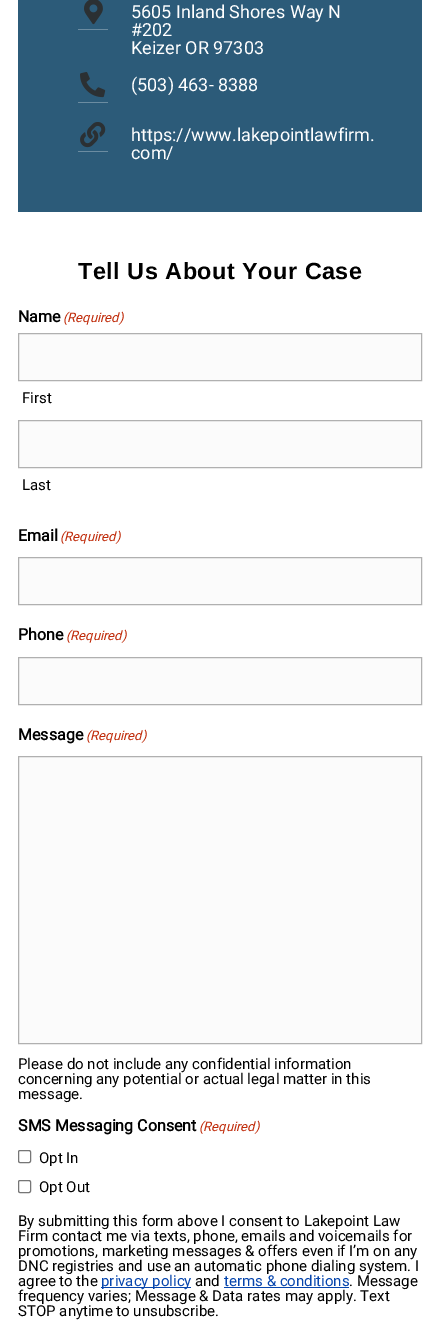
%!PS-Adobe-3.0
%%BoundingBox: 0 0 440 1320
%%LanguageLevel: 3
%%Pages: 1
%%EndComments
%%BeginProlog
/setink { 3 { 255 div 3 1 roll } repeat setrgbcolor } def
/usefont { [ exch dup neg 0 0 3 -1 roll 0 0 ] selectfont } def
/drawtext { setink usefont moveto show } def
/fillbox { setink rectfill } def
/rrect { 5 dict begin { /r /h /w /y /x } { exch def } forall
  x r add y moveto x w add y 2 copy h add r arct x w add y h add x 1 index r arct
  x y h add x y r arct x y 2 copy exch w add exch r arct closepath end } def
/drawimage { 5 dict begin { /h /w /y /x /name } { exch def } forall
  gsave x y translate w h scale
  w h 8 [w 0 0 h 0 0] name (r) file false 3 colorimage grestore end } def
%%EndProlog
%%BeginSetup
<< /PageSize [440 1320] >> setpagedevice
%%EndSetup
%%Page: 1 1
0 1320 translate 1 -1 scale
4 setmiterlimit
0 0 440 1320 255 255 255 fillbox
18 0 404 212 44 91 121 fillbox
78 29 30 1 107 140 161 fillbox
(assets/img1.rgb) 84 0 19 25 drawimage
(5605 Inland Shores Way N) 131 18 /Roboto-Regular 18 255 255 255 drawtext
(#202) 131 36 /Roboto-Regular 18 255 255 255 drawtext
(Keizer OR 97303) 131 54 /Roboto-Regular 18 255 255 255 drawtext
78 102 30 1 107 140 161 fillbox
(assets/img2.rgb) 80 72 26 26 drawimage
(\(503\) 463- 8388) 131 91 /Roboto-Regular 18 255 255 255 drawtext
78 151 30 1 107 140 161 fillbox
(assets/img3.rgb) 80 122 26 26 drawimage
(https://www.lakepointlawfirm.) 131 141 /Roboto-Regular 18 255 255 255 drawtext
(com/) 131 159 /Roboto-Regular 18 255 255 255 drawtext
/LiberationSans-Bold 23.4 usefont
0 0 0 setink
78 279 moveto 0.5 0 (Tell Us About Your Case) ashow
(Name) 18 322 /Roboto-Bold 16 0 0 0 drawtext
(\(Required\)) 63 322 /Roboto-Italic 13 192 43 10 drawtext
251 251 251 setink
18.5 333.5 moveto 421.5 333.5 lineto 421.5 380.5 lineto 18.5 380.5 lineto closepath gsave fill grestore
176 176 176 setink
stroke
(First) 22 403 /Roboto-Regular 15 0 0 0 drawtext
251 251 251 setink
18.5 420.5 moveto 421.5 420.5 lineto 421.5 467.5 lineto 18.5 467.5 lineto closepath gsave fill grestore
176 176 176 setink
stroke
(Last) 22 490 /Roboto-Regular 15 0 0 0 drawtext
(Email) 18 541 /Roboto-Bold 16 0 0 0 drawtext
(\(Required\)) 60 541 /Roboto-Italic 13 192 43 10 drawtext
251 251 251 setink
18.5 557.5 moveto 421.5 557.5 lineto 421.5 604.5 lineto 18.5 604.5 lineto closepath gsave fill grestore
176 176 176 setink
stroke
(Phone) 18 640 /Roboto-Bold 16 0 0 0 drawtext
(\(Required\)) 66 640 /Roboto-Italic 13 192 43 10 drawtext
251 251 251 setink
18.5 657.5 moveto 421.5 657.5 lineto 421.5 704.5 lineto 18.5 704.5 lineto closepath gsave fill grestore
176 176 176 setink
stroke
(Message) 18 740 /Roboto-Bold 16 0 0 0 drawtext
(\(Required\)) 86 740 /Roboto-Italic 13 192 43 10 drawtext
251 251 251 setink
18.5 756.5 moveto 421.5 756.5 lineto 421.5 1043.5 lineto 18.5 1043.5 lineto closepath gsave fill grestore
176 176 176 setink
stroke
(Please do not include any confidential information) 18 1069 /Roboto-Regular 15 0 0 0 drawtext
(concerning any potential or actual legal matter in this) 18 1084 /Roboto-Regular 15 0 0 0 drawtext
(message.) 18 1099 /Roboto-Regular 15 0 0 0 drawtext
(SMS Messaging Consent) 18 1131 /Roboto-Bold 16 0 0 0 drawtext
(\(Required\)) 199 1131 /Roboto-Italic 13 192 43 10 drawtext
118 118 118 setink
18.5 1150.5 12 12 1.5 rrect stroke
(Opt In) 39 1163 /Roboto-Regular 15 0 0 0 drawtext
118 118 118 setink
18.5 1180.5 12 12 1.5 rrect stroke
(Opt Out) 39 1192 /Roboto-Regular 15 0 0 0 drawtext
(By submitting this form above I consent to Lakepoint Law) 18 1226 /Roboto-Regular 15 0 0 0 drawtext
(Firm contact me via texts, phone, emails and voicemails for) 18 1241 /Roboto-Regular 15 0 0 0 drawtext
(promotions, marketing messages & offers even if I’m on any) 18 1256 /Roboto-Regular 15 0 0 0 drawtext
(DNC registries and use an automatic phone dialing system. I) 18 1271 /Roboto-Regular 15 0 0 0 drawtext
(agree to the) 18 1286 /Roboto-Regular 15 0 0 0 drawtext
101 1287 90 1 6 69 173 fillbox
(privacy policy) 101 1286 /Roboto-Regular 15 6 69 173 drawtext
(and) 195 1286 /Roboto-Regular 15 0 0 0 drawtext
(terms & conditions) 224 1286 /Roboto-Regular 15 6 69 173 drawtext
224 1287 125 1 6 69 173 fillbox
(. Message) 349 1286 /Roboto-Regular 15 0 0 0 drawtext
(frequency varies; Message & Data rates may apply. Text) 18 1301 /Roboto-Regular 15 0 0 0 drawtext
(STOP anytime to unsubscribe.) 18 1316 /Roboto-Regular 15 0 0 0 drawtext
showpage
%%EOF
